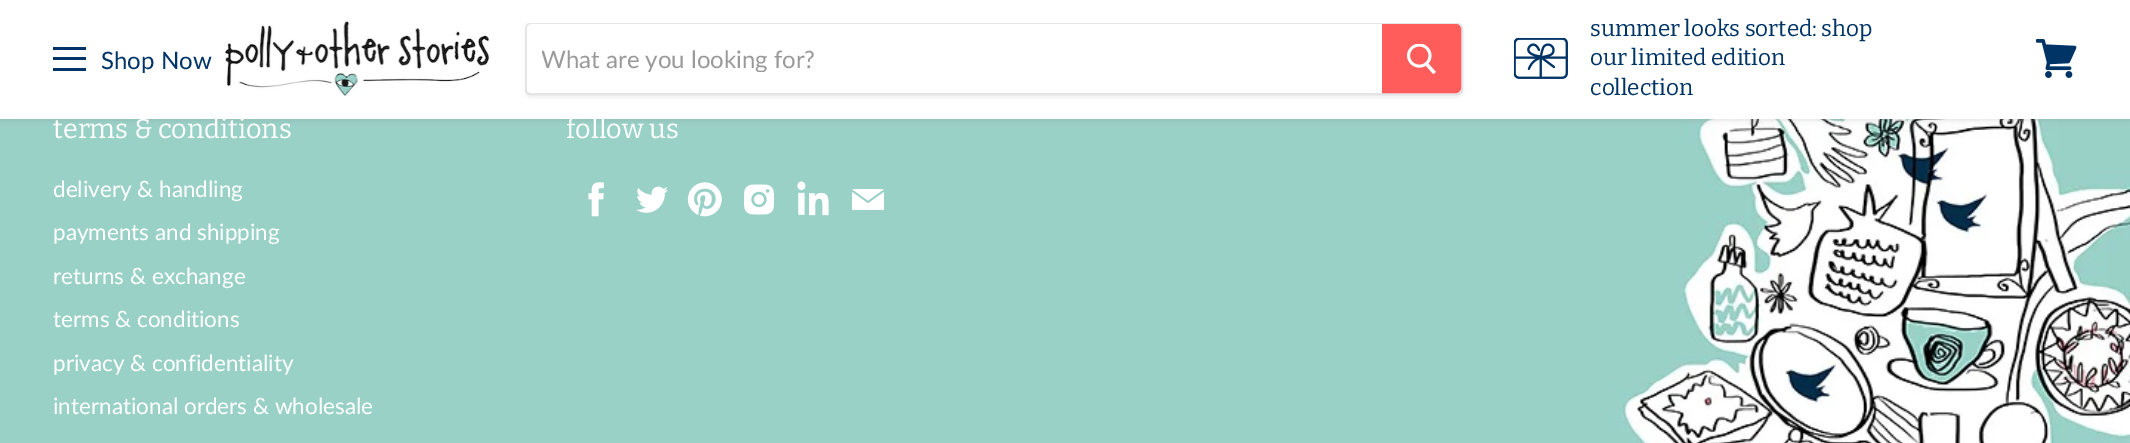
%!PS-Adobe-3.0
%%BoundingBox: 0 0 2130 443
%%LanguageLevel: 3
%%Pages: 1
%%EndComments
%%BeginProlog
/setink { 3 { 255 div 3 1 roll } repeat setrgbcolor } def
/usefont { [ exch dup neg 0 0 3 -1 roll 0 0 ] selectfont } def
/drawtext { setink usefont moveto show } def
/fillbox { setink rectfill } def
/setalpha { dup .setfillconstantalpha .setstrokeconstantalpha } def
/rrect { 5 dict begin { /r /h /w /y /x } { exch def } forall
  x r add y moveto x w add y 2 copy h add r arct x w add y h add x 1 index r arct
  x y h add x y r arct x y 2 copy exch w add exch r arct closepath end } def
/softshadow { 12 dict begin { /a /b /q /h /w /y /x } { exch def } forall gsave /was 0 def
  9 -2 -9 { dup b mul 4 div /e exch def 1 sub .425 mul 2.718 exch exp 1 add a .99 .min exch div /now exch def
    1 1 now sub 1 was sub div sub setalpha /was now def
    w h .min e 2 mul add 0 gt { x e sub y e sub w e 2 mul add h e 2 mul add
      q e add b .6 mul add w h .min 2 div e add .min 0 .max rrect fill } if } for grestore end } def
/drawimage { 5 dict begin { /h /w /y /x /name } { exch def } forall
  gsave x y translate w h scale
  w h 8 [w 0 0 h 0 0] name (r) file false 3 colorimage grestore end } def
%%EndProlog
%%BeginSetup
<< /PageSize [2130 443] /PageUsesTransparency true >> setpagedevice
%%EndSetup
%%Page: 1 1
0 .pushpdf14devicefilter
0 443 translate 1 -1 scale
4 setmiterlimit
0 0 2130 443 255 255 255 fillbox
(assets/img5.rgb) 0 119 2130 324 drawimage
127 127 127 setink
0 2 2130 118 0 3 0.25 softshadow
0 0 2130 119 255 255 255 fillbox
53 47 33 3 0 51 102 fillbox
53 57 33 3 0 51 102 fillbox
53 68 33 3 0 51 102 fillbox
(Shop Now) 101 69 /Lato-Regular 24 0 51 102 drawtext
(assets/img1.rgb) 225 21 264 75 drawimage
gsave
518 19 moveto 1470 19 lineto 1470 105 lineto 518 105 lineto closepath 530 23 moveto 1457 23 lineto 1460.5 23 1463 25.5 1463 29 curveto 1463 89 lineto 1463 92.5 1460.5 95 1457 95 curveto 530 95 lineto 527 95 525 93 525 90 curveto 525 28 lineto 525 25 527 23 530 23 curveto closepath eoclip newpath
127 127 127 setink
525 26 938 72 6 2 0.11 softshadow
grestore
0.2 setalpha
127 127 127 setink
2 setlinewidth
530 24 moveto 1457 24 lineto 1460 24 1462 26 1462 29 curveto 1462 89 lineto 1462 92 1460 94 1457 94 curveto 530 94 lineto 528 94 526 92 526 90 curveto 526 28 lineto 526 26 528 24 530 24 curveto closepath stroke
1 setalpha
255 255 255 setink
532 24 moveto 1382 24 lineto 1382 93 lineto 532 93 lineto 529 93 527 91 527 88 curveto 527 29 lineto 527 26 529 24 532 24 curveto closepath fill
gsave
542 44 825 28 rectclip
(What are you looking for?) 541 68 /Lato-Regular 24 153 153 153 drawtext
grestore
255 92 92 setink
1383 25 moveto 1456 25 lineto 1458 25 1460 27 1460 29 curveto 1460 88 lineto 1460 90 1458 92 1456 92 curveto 1383 92 lineto closepath gsave fill grestore
stroke
(assets/img2.rgb) 1407 44 29 31 drawimage
(assets/img3.rgb) 1514 38 54 41 drawimage
(summer looks sorted: shop) 1590 36 /Bitter-Regular 22.5 0 51 102 drawtext
(our limited edition) 1590 65 /Bitter-Regular 22.5 0 51 102 drawtext
(collection) 1590 95 /Bitter-Regular 22.5 0 51 102 drawtext
(assets/img4.rgb) 2036 39 41 39 drawimage
(terms & conditions) 53 138 /Bitter-Regular 27 255 255 255 drawtext
(delivery & handling) 53 197 /Lato-Regular 22.5 255 255 255 drawtext
(payments and shipping) 53 240 /Lato-Regular 22.5 255 255 255 drawtext
(returns & exchange) 53 284 /Lato-Regular 22.5 255 255 255 drawtext
(terms & conditions) 53 327 /Lato-Regular 22.5 255 255 255 drawtext
(privacy & confidentiality) 53 371 /Lato-Regular 22.5 255 255 255 drawtext
(international orders & wholesale) 53 414 /Lato-Regular 22.5 255 255 255 drawtext
(follow us) 566 138 /Bitter-Regular 27 255 255 255 drawtext
(assets/img6.rgb) 588 182 16 35 drawimage
(assets/img7.rgb) 636 186 32 27 drawimage
(assets/img8.rgb) 687 182 35 35 drawimage
(assets/img9.rgb) 744 184 30 31 drawimage
(assets/img10.rgb) 797 181 32 35 drawimage
884 189 moveto 852 189 lineto 868 200.5 lineto closepath 868 203.5 moveto 852 192 lineto 852 210 lineto 884 210 lineto 884 192 lineto closepath eofill
.poppdf14devicefilter showpage
%%EOF
